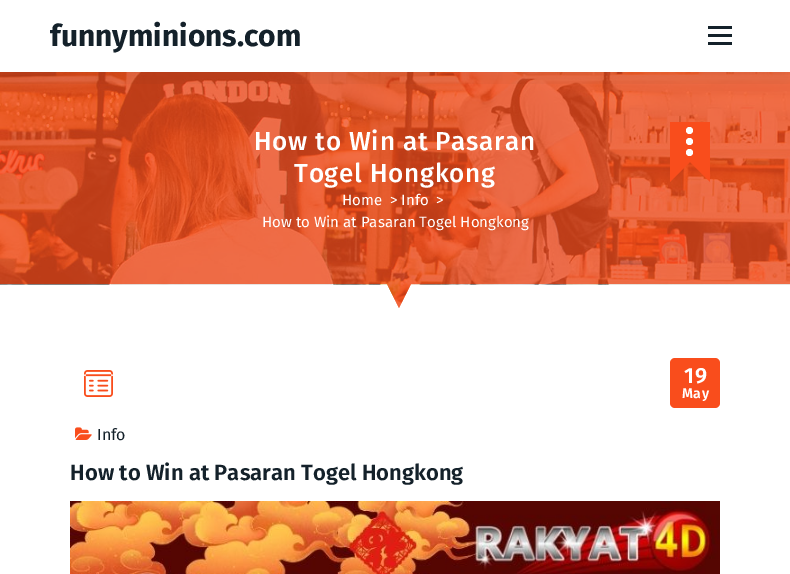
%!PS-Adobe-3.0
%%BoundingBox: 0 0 790 574
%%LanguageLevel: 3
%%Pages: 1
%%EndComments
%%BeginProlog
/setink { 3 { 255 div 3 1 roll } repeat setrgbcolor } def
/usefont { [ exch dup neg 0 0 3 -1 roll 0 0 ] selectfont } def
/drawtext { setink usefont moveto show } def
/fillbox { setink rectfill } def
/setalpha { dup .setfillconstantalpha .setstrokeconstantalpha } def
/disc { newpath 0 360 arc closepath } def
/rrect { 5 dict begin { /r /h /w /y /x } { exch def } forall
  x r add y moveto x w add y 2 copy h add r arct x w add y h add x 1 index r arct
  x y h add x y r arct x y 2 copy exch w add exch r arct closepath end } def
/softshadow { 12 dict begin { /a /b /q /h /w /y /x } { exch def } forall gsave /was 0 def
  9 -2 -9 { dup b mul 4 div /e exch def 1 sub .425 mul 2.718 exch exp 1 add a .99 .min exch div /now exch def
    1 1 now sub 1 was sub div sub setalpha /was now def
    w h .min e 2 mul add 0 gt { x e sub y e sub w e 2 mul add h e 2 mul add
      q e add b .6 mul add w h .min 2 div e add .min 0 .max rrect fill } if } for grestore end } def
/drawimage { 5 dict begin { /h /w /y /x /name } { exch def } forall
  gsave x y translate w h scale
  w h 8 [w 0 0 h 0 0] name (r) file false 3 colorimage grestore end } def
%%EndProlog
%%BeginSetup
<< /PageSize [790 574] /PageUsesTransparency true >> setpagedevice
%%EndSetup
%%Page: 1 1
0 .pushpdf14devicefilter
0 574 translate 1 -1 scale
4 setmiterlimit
0 0 790 574 255 255 255 fillbox
(assets/img1.rgb) 0 72 790 236 drawimage
0.75 setalpha
249 77 28 setink
0 72 moveto 0 284 lineto 387 284 lineto 399 308 lineto 411 284 lineto 790 284 lineto 790 72 lineto closepath fill
gsave
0 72 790 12 rectclip
1 setalpha
0 0 0 setink
0 10 790 72 0 7.5 0.05 softshadow
grestore
1 setalpha
(funnyminions.com) 50 46 /FiraSans-Bold 30 20 33 42 drawtext
708 26 24 3 20 33 42 fillbox
708 34 24 3 20 33 42 fillbox
708 42 24 3 20 33 42 fillbox
670 122 40 40 249 77 28 fillbox
710 142 moveto 710 182 lineto 690 162 lineto closepath 670 182 moveto 670 142 lineto 690 162 lineto closepath fill
255 255 255 setink
689.5 141.5 3.5 disc fill
689.5 130.5 3.5 disc fill
689.5 152.5 3.5 disc fill
/FiraSans-Medium 26 usefont
254 150 moveto 0.75 0 (How to Win at Pasaran) ashow
294 182 moveto 0.75 0 (Togel Hongkong) ashow
(Home) 342 205 /FiraSans-Regular 15 255 255 255 drawtext
(> Info) 390 205 /FiraSans-Regular 15 255 255 255 drawtext
(>) 436 205 /FiraSans-Regular 15 255 255 255 drawtext
(How to Win at Pasaran Togel Hongkong) 262 227 /FiraSans-Regular 15 255 255 255 drawtext
249 77 28 setink
670 358 50 50 5 rrect fill
/FiraSans-SemiBold 22 usefont
255 255 255 setink
684 383 moveto 0.5 0 (19) ashow
/FiraSans-SemiBold 14 usefont
682 398 moveto 0.5 0 (May) ashow
(assets/img2.rgb) 75 427 17 13 drawimage
(Info) 97 440 /FiraSans-Regular 16 20 33 42 drawtext
(How to Win at Pasaran Togel Hongkong) 70 480 /FiraSans-SemiBold 22 20 33 42 drawtext
(assets/img3.rgb) 70 501 650 73 drawimage
(assets/img4.rgb) 84 370 29 27 drawimage
.poppdf14devicefilter showpage
%%EOF
